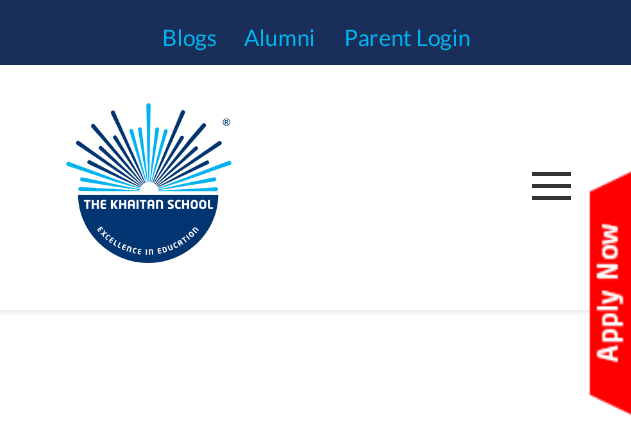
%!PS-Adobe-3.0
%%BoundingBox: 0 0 631 427
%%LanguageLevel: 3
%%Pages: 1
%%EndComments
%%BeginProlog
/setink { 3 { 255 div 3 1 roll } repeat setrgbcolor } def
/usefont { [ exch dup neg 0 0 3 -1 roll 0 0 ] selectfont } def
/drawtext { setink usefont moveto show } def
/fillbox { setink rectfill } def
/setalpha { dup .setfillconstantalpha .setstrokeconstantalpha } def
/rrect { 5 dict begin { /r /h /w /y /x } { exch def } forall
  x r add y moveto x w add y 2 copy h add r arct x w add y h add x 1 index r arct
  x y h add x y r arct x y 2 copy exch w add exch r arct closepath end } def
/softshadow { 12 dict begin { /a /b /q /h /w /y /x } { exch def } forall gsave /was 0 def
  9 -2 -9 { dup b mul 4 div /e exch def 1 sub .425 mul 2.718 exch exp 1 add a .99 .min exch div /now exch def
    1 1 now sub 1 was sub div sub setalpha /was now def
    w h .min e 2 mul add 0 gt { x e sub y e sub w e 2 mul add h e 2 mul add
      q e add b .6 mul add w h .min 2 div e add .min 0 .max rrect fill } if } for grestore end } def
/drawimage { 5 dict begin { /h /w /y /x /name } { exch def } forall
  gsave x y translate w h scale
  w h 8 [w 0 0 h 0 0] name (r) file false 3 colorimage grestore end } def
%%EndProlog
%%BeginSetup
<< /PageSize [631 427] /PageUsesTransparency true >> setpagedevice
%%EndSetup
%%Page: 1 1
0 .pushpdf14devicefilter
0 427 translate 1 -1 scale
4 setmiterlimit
0 0 631 427 255 255 255 fillbox
0 0 631 65 25 47 89 fillbox
(Blogs) 162 46 /Lato-Regular 22.75 0 179 239 drawtext
(Alumni) 244 46 /Lato-Regular 22.75 0 179 239 drawtext
(Parent Login) 344 46 /Lato-Regular 22.75 0 179 239 drawtext
gsave
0 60 moveto 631 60 lineto 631 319 lineto 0 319 lineto closepath 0 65 moveto 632 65 lineto 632 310 lineto 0 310 lineto closepath eoclip newpath
0 0 0 setink
0 67 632 245 0 2 0.1 softshadow
grestore
(assets/img1.rgb) 66 103 166 161 drawimage
532 172 39 4 51 51 51 fillbox
532 184 39 4 51 51 51 fillbox
532 196 39 4 51 51 51 fillbox
(assets/img2.rgb) 589 171 42 245 drawimage
.poppdf14devicefilter showpage
%%EOF
